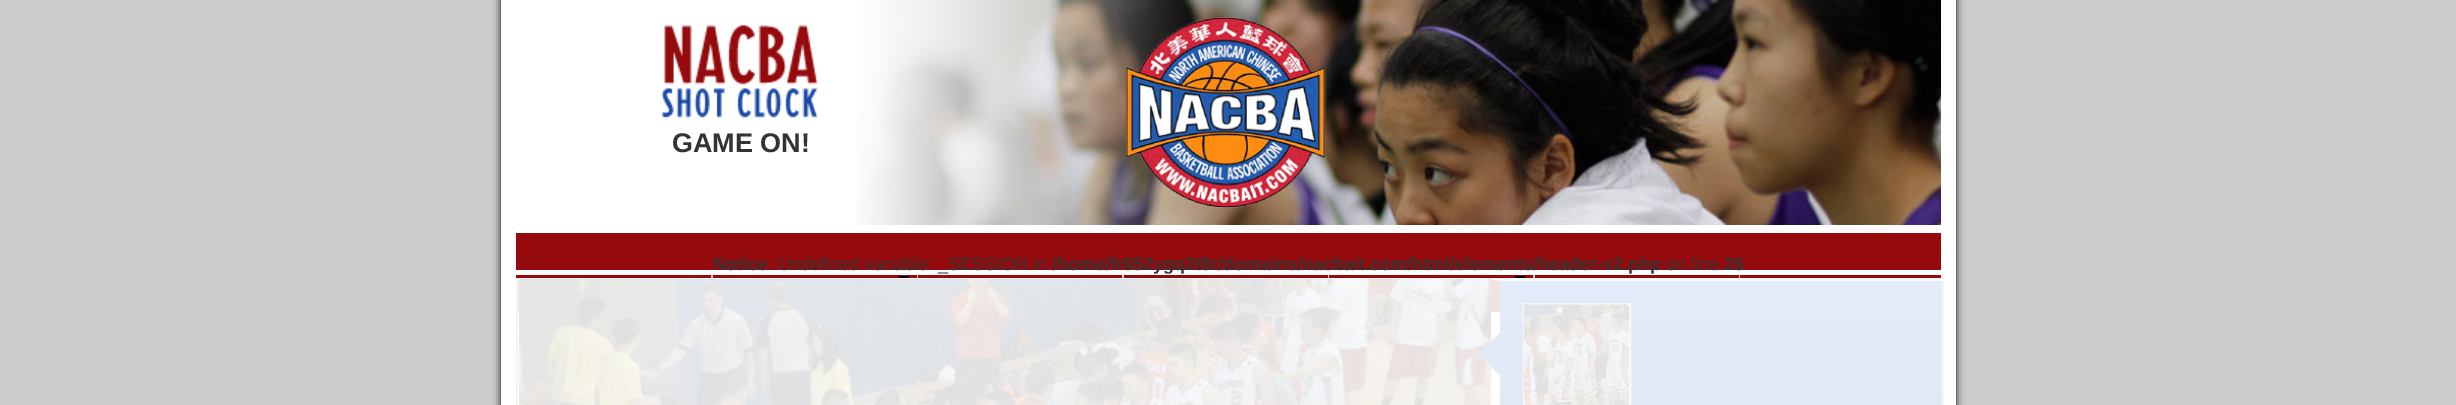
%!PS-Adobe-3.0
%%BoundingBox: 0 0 2456 405
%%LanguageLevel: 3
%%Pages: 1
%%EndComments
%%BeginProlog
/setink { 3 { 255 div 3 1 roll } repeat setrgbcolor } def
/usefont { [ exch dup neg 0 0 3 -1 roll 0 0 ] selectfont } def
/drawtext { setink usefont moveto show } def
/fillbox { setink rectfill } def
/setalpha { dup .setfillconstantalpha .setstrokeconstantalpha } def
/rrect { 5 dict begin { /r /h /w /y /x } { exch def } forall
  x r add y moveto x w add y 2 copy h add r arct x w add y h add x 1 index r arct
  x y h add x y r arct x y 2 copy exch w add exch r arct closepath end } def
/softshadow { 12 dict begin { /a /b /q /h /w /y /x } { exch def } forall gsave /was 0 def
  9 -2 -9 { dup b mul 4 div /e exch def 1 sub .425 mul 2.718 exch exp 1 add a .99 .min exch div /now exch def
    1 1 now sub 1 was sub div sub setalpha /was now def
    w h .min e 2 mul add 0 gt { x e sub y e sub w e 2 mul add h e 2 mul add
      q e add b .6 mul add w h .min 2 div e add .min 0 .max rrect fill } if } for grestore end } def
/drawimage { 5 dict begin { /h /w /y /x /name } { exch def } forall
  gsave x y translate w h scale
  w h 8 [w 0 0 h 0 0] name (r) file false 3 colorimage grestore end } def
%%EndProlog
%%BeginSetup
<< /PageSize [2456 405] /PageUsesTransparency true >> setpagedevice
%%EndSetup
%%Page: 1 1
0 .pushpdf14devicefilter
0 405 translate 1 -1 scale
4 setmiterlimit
0 0 2456 405 204 204 204 fillbox
0 0 0 setink
501 0 1455 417 0 4 1 softshadow
501 0 1455 405 255 255 255 fillbox
(assets/img1.rgb) 857 0 1084 225 drawimage
(assets/img2.rgb) 661 25 157 93 drawimage
(GAME ON!) 672 152 /LiberationSans-Bold 27 51 51 51 drawtext
(assets/img3.rgb) 1125 17 201 191 drawimage
516 233 1425 37 149 10 13 fillbox
(Notice) 713 270 /LiberationSans-Bold 18 51 51 51 drawtext
(: Undefined variable: _SESSION in) 768 270 /LiberationSans-Regular 18 51 51 51 drawtext
(/home/fr652ygq2t8r/domains/nacbait.com/html/elements/header-v2.php) 1052 270 /LiberationSans-Bold 18 51 51 51 drawtext
(on line) 1666 270 /LiberationSans-Regular 18 51 51 51 drawtext
(26) 1724 270 /LiberationSans-Bold 18 51 51 51 drawtext
516 275 195 37 149 10 13 fillbox
711 275 2 3 204 204 204 fillbox
713 275 204 3 149 10 13 fillbox
(assets/img4.rgb) 898 275 12 3 drawimage
917 275 1 3 204 204 204 fillbox
918 275 204 3 149 10 13 fillbox
1122 275 2 3 204 204 204 fillbox
1124 275 204 3 149 10 13 fillbox
1328 275 1 3 204 204 204 fillbox
1329 275 204 37 149 10 13 fillbox
(assets/img5.rgb) 1515 275 11 3 drawimage
1533 275 2 3 204 204 204 fillbox
1535 275 204 3 149 10 13 fillbox
1739 275 1 3 204 204 204 fillbox
1740 275 201 3 149 10 13 fillbox
244 244 244 setink
2 setlinewidth
517 279 1426 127 rectstroke
(assets/img6.rgb) 519 279 972 126 drawimage
(assets/img7.rgb) 1477 331 23 46 drawimage
(assets/img8.rgb) 1500 281 443 124 drawimage
1500 279 443 2 225 225 225 fillbox
197 197 197 setink
1524 304 106 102 rectstroke
(assets/img9.rgb) 1524 304 105 101 drawimage
0.88 setalpha
518 279 1425 126 255 255 255 fillbox
.poppdf14devicefilter showpage
%%EOF
